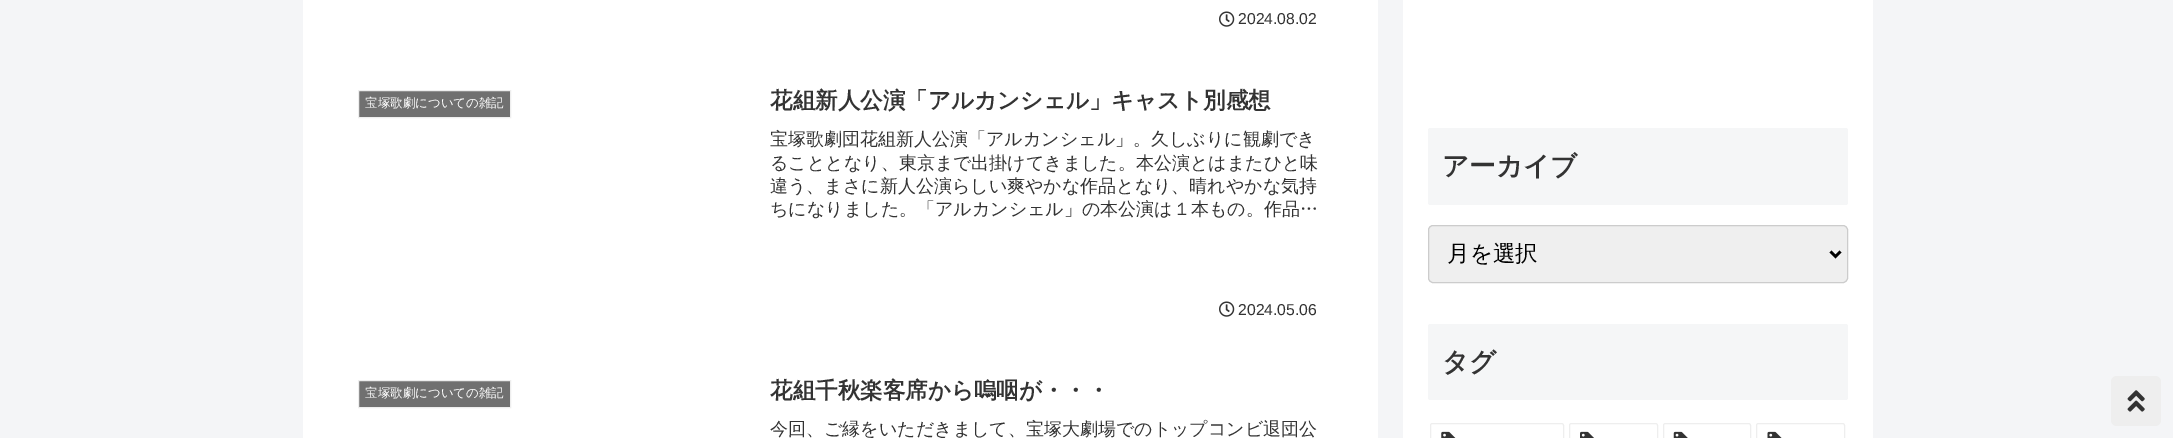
%!PS-Adobe-3.0
%%BoundingBox: 0 0 2173 438
%%LanguageLevel: 3
%%Pages: 1
%%EndComments
%%BeginProlog
/setink { 3 { 255 div 3 1 roll } repeat setrgbcolor } def
/usefont { [ exch dup neg 0 0 3 -1 roll 0 0 ] selectfont } def
/drawtext { setink usefont moveto show } def
/fillbox { setink rectfill } def
/rrect { 5 dict begin { /r /h /w /y /x } { exch def } forall
  x r add y moveto x w add y 2 copy h add r arct x w add y h add x 1 index r arct
  x y h add x y r arct x y 2 copy exch w add exch r arct closepath end } def
/drawimage { 5 dict begin { /h /w /y /x /name } { exch def } forall
  gsave x y translate w h scale
  w h 8 [w 0 0 h 0 0] name (r) file false 3 colorimage grestore end } def
%%EndProlog
%%BeginSetup
<< /PageSize [2173 438] >> setpagedevice
%%EndSetup
%%Page: 1 1
0 438 translate 1 -1 scale
4 setmiterlimit
0 0 2173 438 244 245 247 fillbox
303 0 1075 438 255 255 255 fillbox
(assets/img1.rgb) 1219 11 16 16 drawimage
(2024.08.02) 1238 24 /LiberationSans-Regular 15.75 51 51 51 drawtext
112 112 112 setink
358.5 90.5 moveto 510.5 90.5 lineto 510.5 117.5 lineto 358.5 117.5 lineto closepath gsave fill grestore
238 238 238 setink
stroke
(宝塚歌劇についての雑記) 365 107 /WenQuanYiZenHei-Medium 12.5 255 255 255 drawtext
(花組新人公演「アルカンシェル」キャスト別感想) 770 108 /WenQuanYiZenHei-Bold 22.5 51 51 51 drawtext
(宝塚歌劇団花組新人公演「アルカンシェル」。久しぶりに観劇でき) 770 145 /WenQuanYiZenHei-Medium 18 51 51 51 drawtext
(ることとなり、東京まで出掛けてきました。本公演とはまたひと味) 770 169 /WenQuanYiZenHei-Medium 18 51 51 51 drawtext
(違う、まさに新人公演らしい爽やかな作品となり、晴れやかな気持) 770 192 /WenQuanYiZenHei-Medium 18 51 51 51 drawtext
(ちになりました。「アルカンシェル」の本公演は１本もの。作品…) 770 215 /WenQuanYiZenHei-Medium 18 51 51 51 drawtext
(assets/img1.rgb) 1219 301 16 16 drawimage
(2024.05.06) 1238 315 /LiberationSans-Regular 15.75 51 51 51 drawtext
112 112 112 setink
358.5 380.5 moveto 510.5 380.5 lineto 510.5 407.5 lineto 358.5 407.5 lineto closepath gsave fill grestore
238 238 238 setink
stroke
(宝塚歌劇についての雑記) 365 397 /WenQuanYiZenHei-Medium 12.5 255 255 255 drawtext
(花組千秋楽客席から嗚咽が・・・) 770 398 /WenQuanYiZenHei-Bold 22.5 51 51 51 drawtext
(今回、ご縁をいただきまして、宝塚大劇場でのトップコンビ退団公) 770 435 /WenQuanYiZenHei-Medium 18 51 51 51 drawtext
1403 0 470 438 255 255 255 fillbox
245 246 247 setink
1428 128 420 77 2.5 rrect fill
(アーカイブ) 1442 175 /WenQuanYiZenHei-Bold 26.5 51 51 51 drawtext
239 239 239 setink
1428.5 225.5 419 57 4.5 rrect gsave fill grestore
204 204 204 setink
stroke
0 0 0 setink
2.5 setlinewidth
1830.5 251.5 moveto 1835.5 256.5 lineto 1840.5 251.5 lineto stroke
(月を選択) 1447 261 /WenQuanYiZenHei-Medium 22.5 0 0 0 drawtext
245 246 247 setink
1428 324 420 76 2.5 rrect fill
(タグ) 1442 371 /WenQuanYiZenHei-Bold 26.5 51 51 51 drawtext
238 238 238 setink
1 setlinewidth
1430.5 423.5 133 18 2 rrect stroke
(assets/img2.rgb) 1441 431 15 7 drawimage
1569.5 423.5 88 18 2 rrect stroke
(assets/img3.rgb) 1580 431 14 7 drawimage
1663.5 423.5 87 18 2 rrect stroke
(assets/img4.rgb) 1673 431 15 7 drawimage
1756.5 423.5 88 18 2 rrect stroke
(assets/img5.rgb) 1767 431 15 7 drawimage
2111 376 50 50 6 rrect fill
(assets/img6.rgb) 2127 390 18 22 drawimage
showpage
%%EOF
